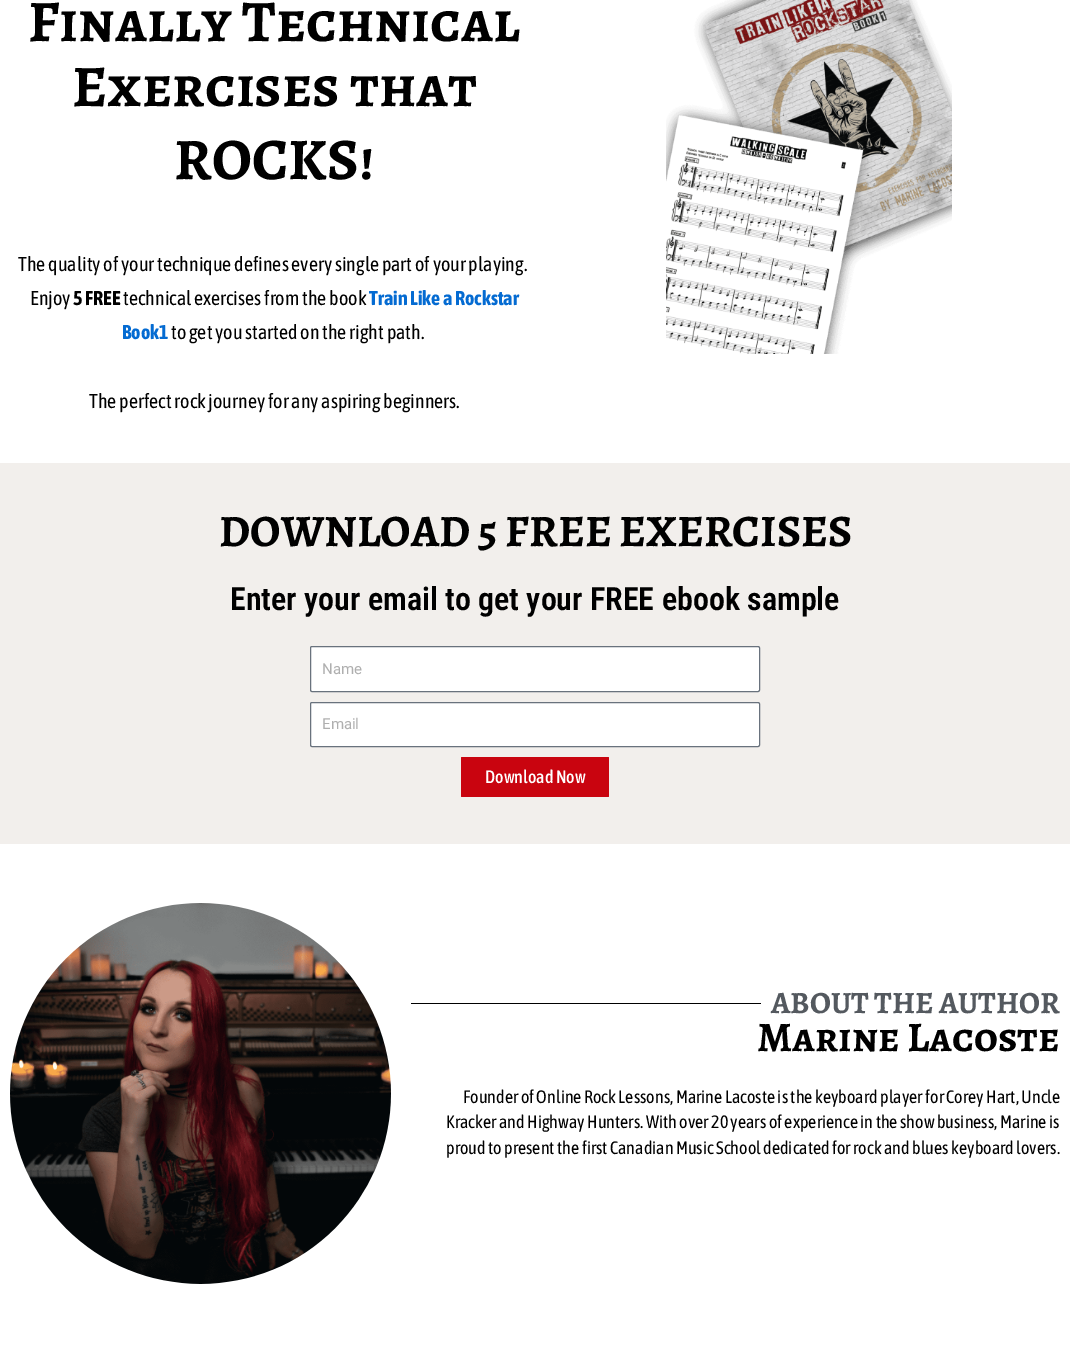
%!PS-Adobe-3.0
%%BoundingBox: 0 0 1070 1348
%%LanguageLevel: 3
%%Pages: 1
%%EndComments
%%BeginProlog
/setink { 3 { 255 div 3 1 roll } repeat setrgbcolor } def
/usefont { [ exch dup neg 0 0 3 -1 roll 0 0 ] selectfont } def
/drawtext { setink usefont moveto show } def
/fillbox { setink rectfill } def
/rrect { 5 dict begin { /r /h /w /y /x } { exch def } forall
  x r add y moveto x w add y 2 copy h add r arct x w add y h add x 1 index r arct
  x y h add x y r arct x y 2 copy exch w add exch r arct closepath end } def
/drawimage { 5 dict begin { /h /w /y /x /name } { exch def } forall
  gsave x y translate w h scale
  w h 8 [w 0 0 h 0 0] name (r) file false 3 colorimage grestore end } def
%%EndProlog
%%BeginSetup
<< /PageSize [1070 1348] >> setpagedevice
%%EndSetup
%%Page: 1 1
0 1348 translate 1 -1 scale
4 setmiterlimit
0 0 1070 1348 255 255 255 fillbox
(Finally Technical) 28 41 /AlegreyaSC-Bold 59 0 0 0 drawtext
(Exercises that) 72 106 /AlegreyaSC-Bold 59 0 0 0 drawtext
(ROCKS!) 174 179 /AlegreyaSC-Bold 59 0 0 0 drawtext
(The quality of your technique defines every single part of your playing.) 18 271 /AsapCondensed-Regular 20 0 0 0 drawtext
(Enjoy) 30 305 /AsapCondensed-Regular 20 0 0 0 drawtext
(5 FREE) 73 305 /AsapCondensed-Bold 20 0 0 0 drawtext
(technical exercises from the book) 123 305 /AsapCondensed-Regular 20 0 0 0 drawtext
(Train Like a Rockstar) 369 305 /AsapCondensed-Bold 20 4 107 210 drawtext
(Book1) 122 339 /AsapCondensed-Bold 20 4 107 210 drawtext
(to get you started on the right path.) 171 339 /AsapCondensed-Regular 20 0 0 0 drawtext
(The perfect rock journey for any aspiring beginners.) 89 408 /AsapCondensed-Regular 20 0 0 0 drawtext
(assets/img1.rgb) 666 0 286 354 drawimage
0 463 1070 381 242 239 236 fillbox
(DOWNLOAD 5 FREE EXERCISES) 219 546 /AlegreyaSC-Bold 45 0 0 0 drawtext
(Enter your email to get your FREE ebook sample) 230 610 /RobotoCondensed-SemiBold 32 0 0 0 drawtext
255 255 255 setink
310.5 646.5 449 45 1.5 rrect gsave fill grestore
105 114 125 setink
stroke
(Name) 322 674 /Roboto-Regular 15 175 175 175 drawtext
255 255 255 setink
310.5 702.5 449 44 1.5 rrect gsave fill grestore
105 114 125 setink
stroke
(Email) 322 729 /Roboto-Regular 15 175 175 175 drawtext
201 4 15 setink
461 757 148 40 1 rrect fill
(Download Now) 485 783 /AsapCondensed-Medium 18 255 255 255 drawtext
(assets/img2.rgb) 10 903 381 381 drawimage
411 1003 350 1 0 0 0 fillbox
(ABOUT THE AUTHOR) 771 1013 /AlegreyaSC-Bold 31 84 89 95 drawtext
(Marine Lacoste) 757 1051 /AlegreyaSC-Bold 42 0 0 0 drawtext
(Founder of Online Rock Lessons, Marine Lacoste is the keyboard player for Corey Hart, Uncle) 463 1103 /AsapCondensed-Regular 18 0 0 0 drawtext
(Kracker and Highway Hunters. With over 20 years of experience in the show business, Marine is) 446 1128 /AsapCondensed-Regular 18 0 0 0 drawtext
(proud to present the first Canadian Music School dedicated for rock and blues keyboard lovers.) 446 1154 /AsapCondensed-Regular 18 0 0 0 drawtext
showpage
%%EOF
